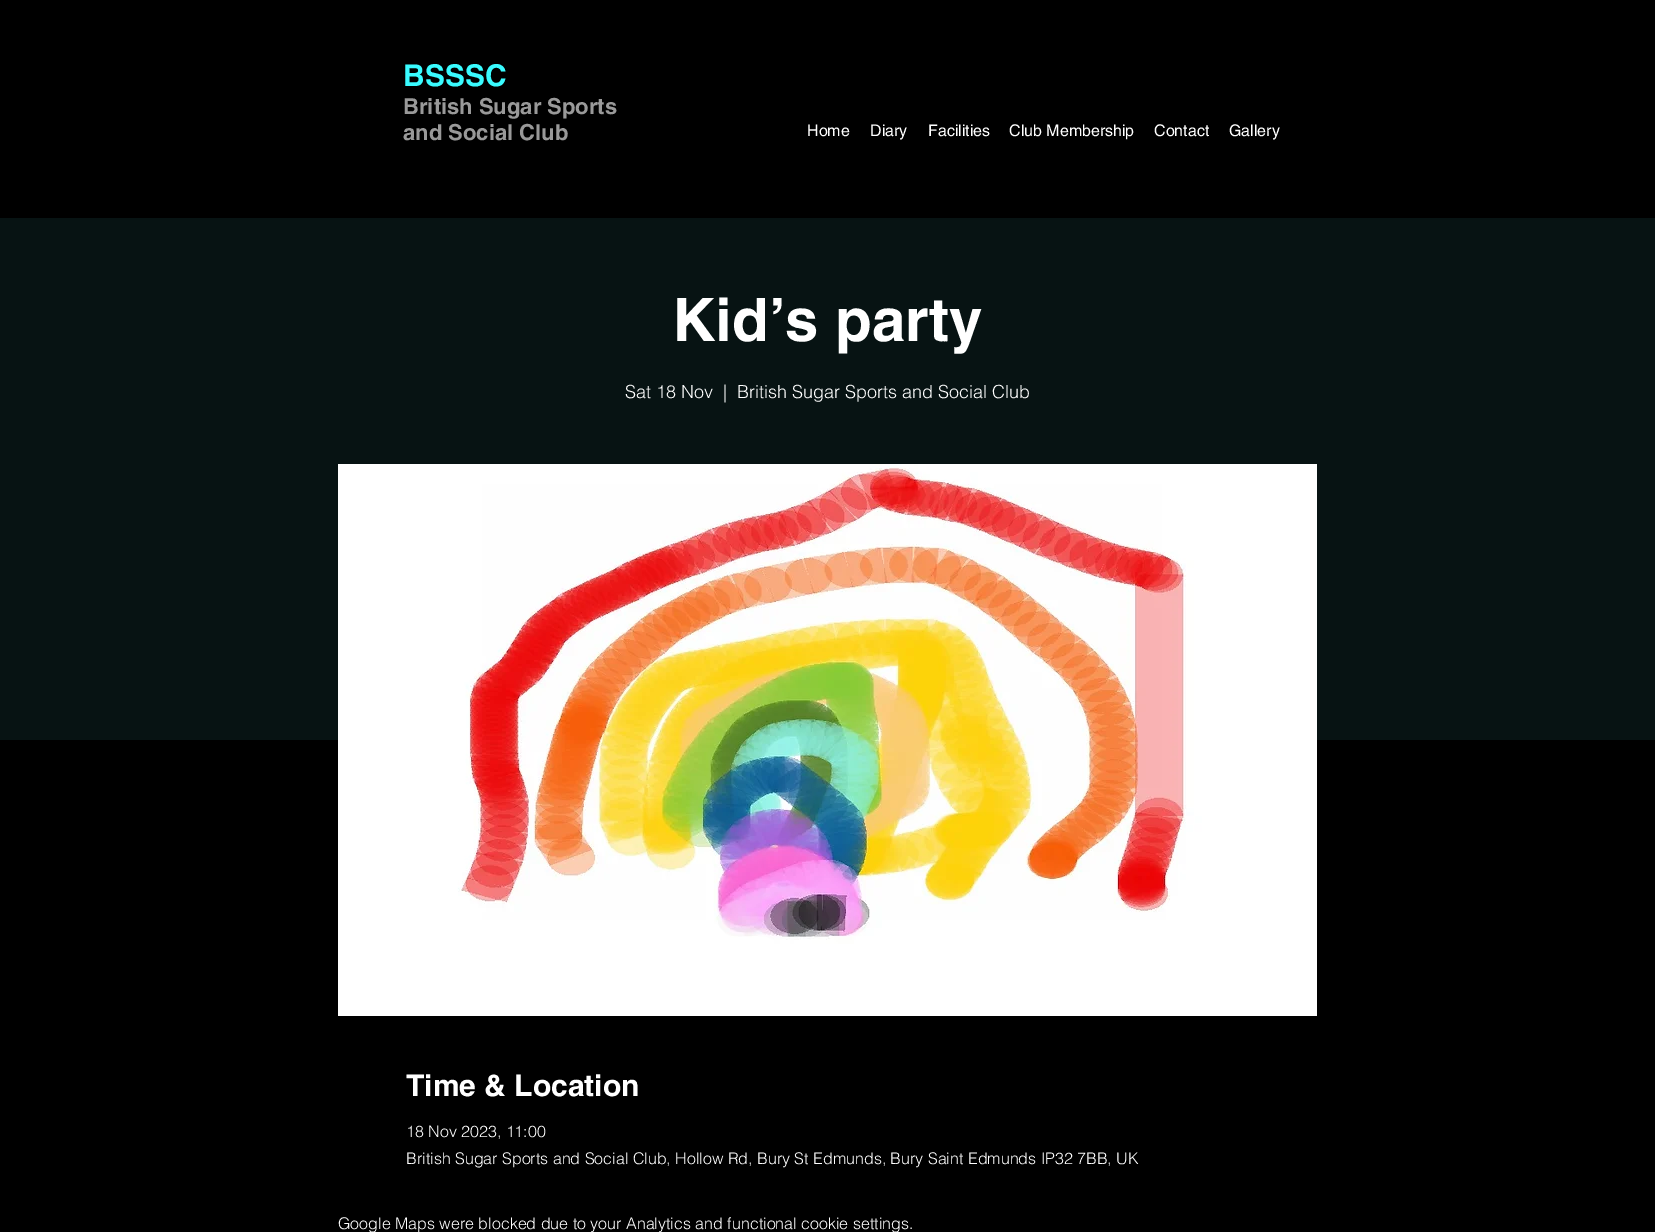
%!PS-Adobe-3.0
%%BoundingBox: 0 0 1655 1232
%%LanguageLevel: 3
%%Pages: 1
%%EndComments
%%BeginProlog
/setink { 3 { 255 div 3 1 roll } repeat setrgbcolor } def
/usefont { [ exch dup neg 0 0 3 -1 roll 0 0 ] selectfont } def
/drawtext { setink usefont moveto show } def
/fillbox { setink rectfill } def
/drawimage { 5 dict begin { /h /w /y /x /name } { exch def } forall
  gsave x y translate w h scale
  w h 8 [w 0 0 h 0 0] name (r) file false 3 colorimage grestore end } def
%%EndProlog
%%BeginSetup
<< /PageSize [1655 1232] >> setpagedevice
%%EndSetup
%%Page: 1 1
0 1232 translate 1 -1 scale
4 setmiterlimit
0 0 1655 1232 0 0 0 fillbox
(BSSSC) 403 86 /helvetica-Bold 30 57 251 255 drawtext
(British Sugar Sports) 403 114 /helvetica-Bold 22 153 153 153 drawtext
(and Social Club) 403 140 /helvetica-Bold 22 153 153 153 drawtext
(Home) 807 136 /helvetica-Regular 16 255 255 255 drawtext
(Diary) 870 136 /helvetica-Regular 16 255 255 255 drawtext
(Facilities) 928 136 /helvetica-Regular 16 255 255 255 drawtext
(Club Membership) 1009 136 /helvetica-Regular 16 255 255 255 drawtext
(Contact) 1154 136 /helvetica-Regular 16 255 255 255 drawtext
(Gallery) 1229 136 /helvetica-Regular 16 255 255 255 drawtext
0 218 1655 522 7 19 19 fillbox
(Kid’s party) 672 341 /helvetica-Bold 60 255 255 255 drawtext
(Sat 18 Nov) 625 398 /helvetica-Light 18 255 255 255 drawtext
(|) 723 398 /helvetica-Light 18 255 255 255 drawtext
(British Sugar Sports and Social Club) 737 398 /helvetica-Light 18 255 255 255 drawtext
(assets/img1.rgb) 338 464 979 552 drawimage
(Time & Location) 406 1096 /helvetica-Bold 30 255 255 255 drawtext
(18 Nov 2023, 11:00) 406 1137 /helvetica-Light 16 255 255 255 drawtext
(British Sugar Sports and Social Club, Hollow Rd, Bury St Edmunds, Bury Saint Edmunds IP32 7BB, UK) 406 1164 /helvetica-Light 16 255 255 255 drawtext
(Google Maps were blocked due to your Analytics and functional cookie settings.) 338 1229 /helvetica-Light 16 255 255 255 drawtext
showpage
%%EOF
